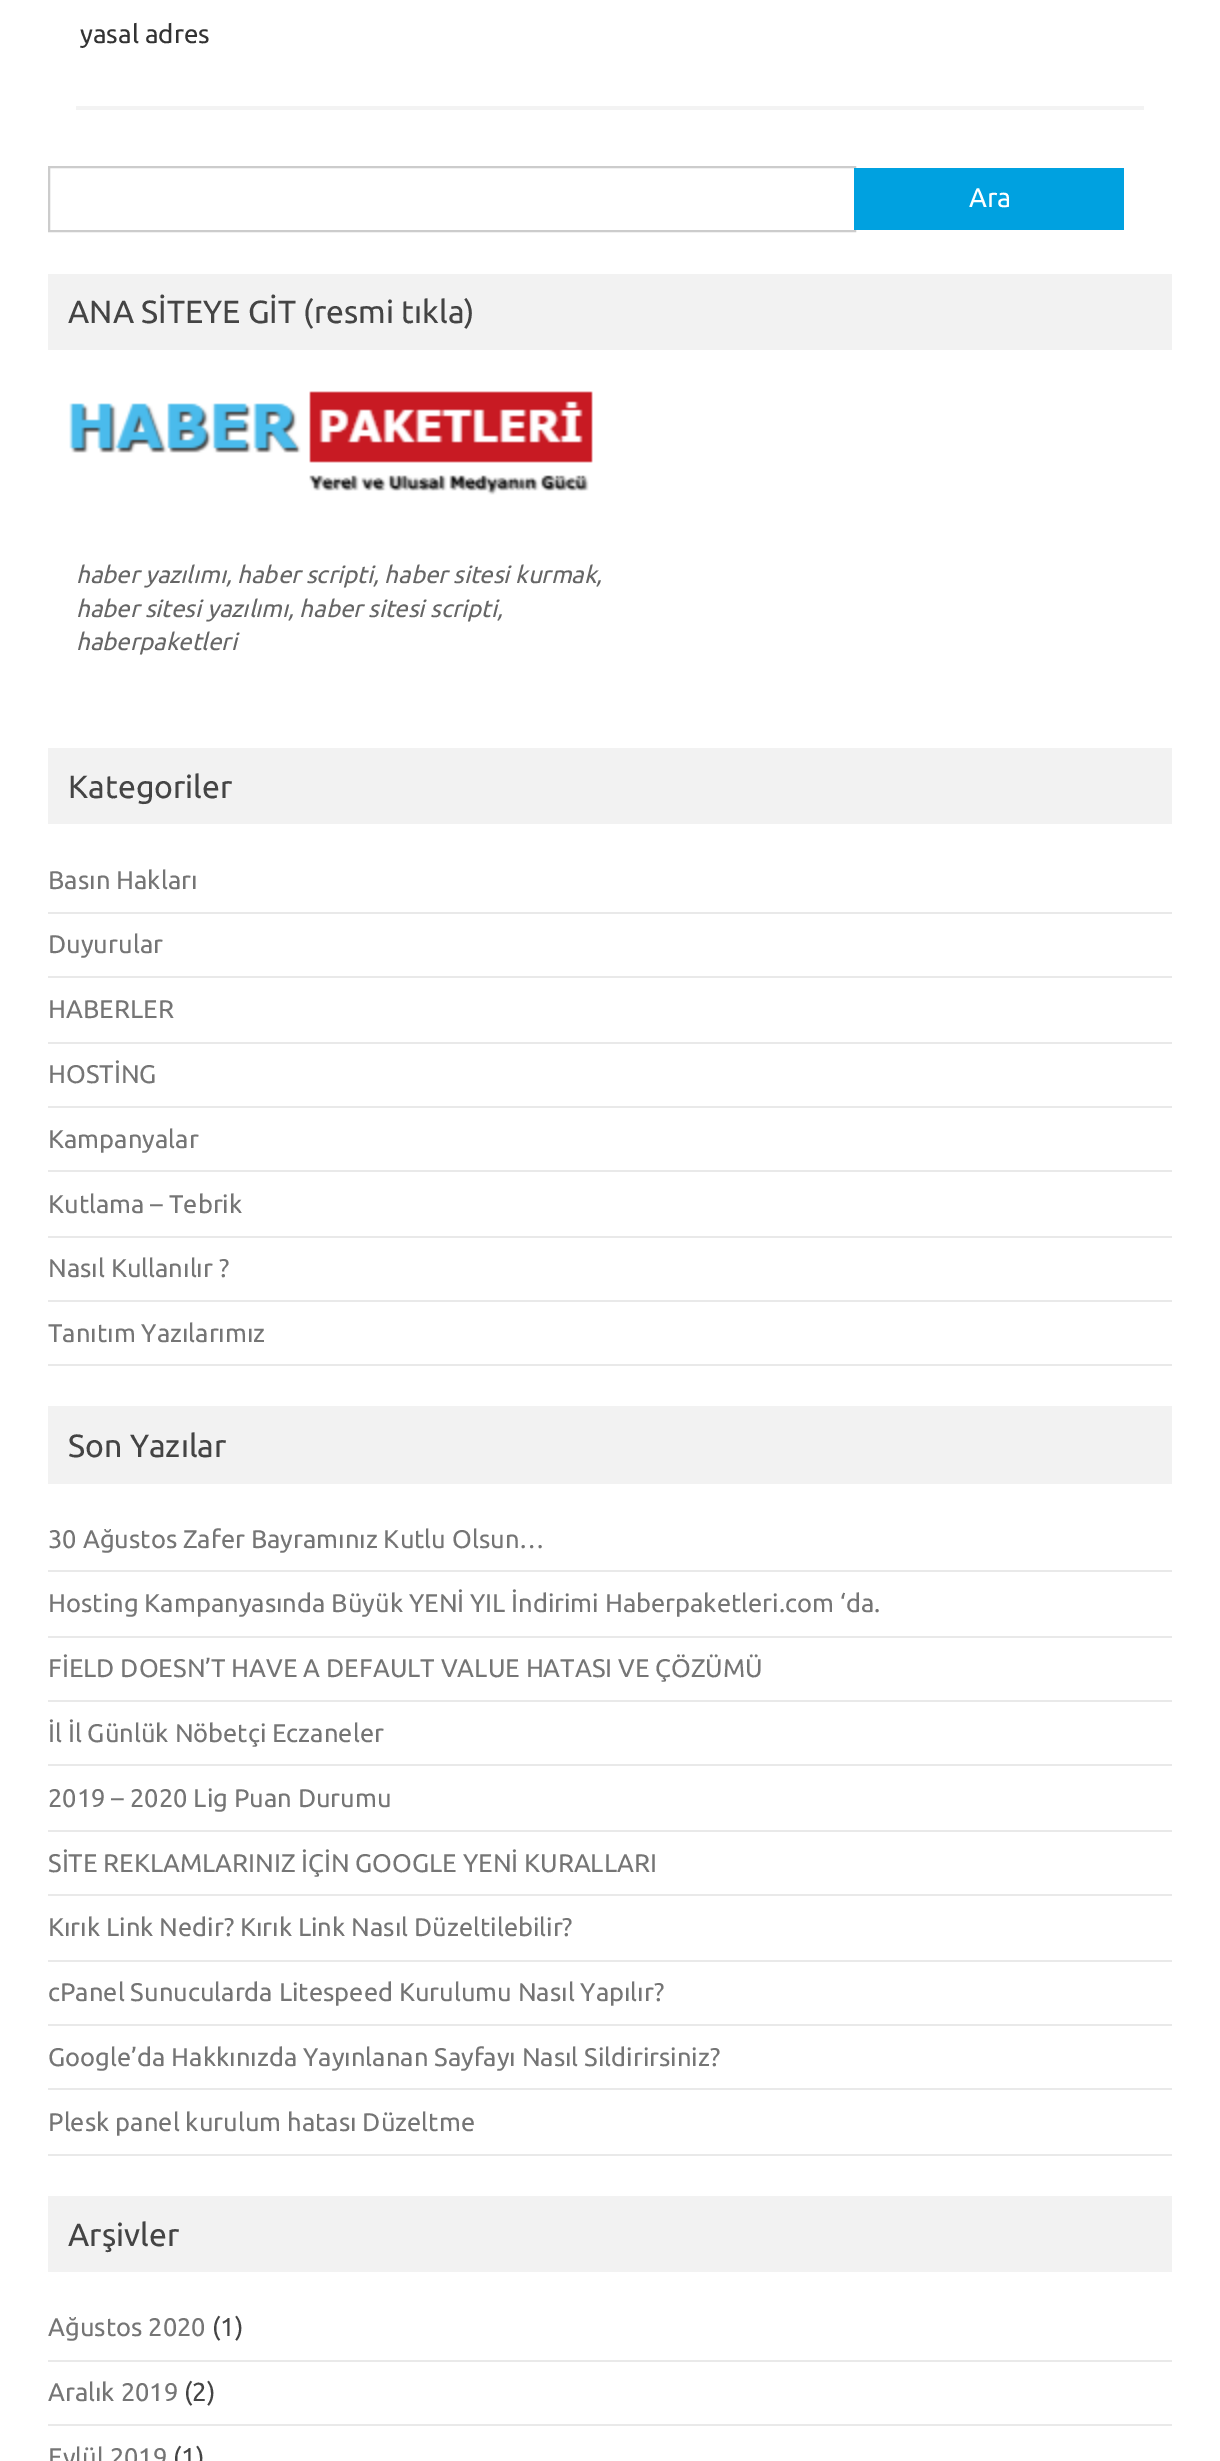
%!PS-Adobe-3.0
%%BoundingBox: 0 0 1220 2461
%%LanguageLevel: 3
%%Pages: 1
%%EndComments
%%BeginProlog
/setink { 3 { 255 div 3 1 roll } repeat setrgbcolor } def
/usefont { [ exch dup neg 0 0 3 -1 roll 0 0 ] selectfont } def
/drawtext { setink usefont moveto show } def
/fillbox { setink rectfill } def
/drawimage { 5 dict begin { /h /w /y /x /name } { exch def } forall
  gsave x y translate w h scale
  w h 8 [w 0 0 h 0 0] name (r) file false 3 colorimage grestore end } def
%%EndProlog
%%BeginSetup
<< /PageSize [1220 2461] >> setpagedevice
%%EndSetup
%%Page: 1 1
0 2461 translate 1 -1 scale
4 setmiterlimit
0 0 1220 2461 255 255 255 fillbox
76 106 1068 4 243 243 243 fillbox
(yasal adres) 80 43 /Ubuntu-Regular 26 51 51 51 drawtext
204 204 204 setink
2 setlinewidth
49 167 806 64 rectstroke
854 168 270 62 0 161 224 fillbox
(Ara) 969 207 /Ubuntu-Regular 27 255 255 255 drawtext
48 274 1124 76 242 242 242 fillbox
(ANA SİTEYE GİT \(resmi tıkla\)) 68 323 /Ubuntu-Regular 32 68 68 68 drawtext
(assets/img1.rgb) 69 391 524 104 drawimage
(haber yazılımı, haber scripti, haber sitesi kurmak,) 76 583 /Ubuntu-Italic 24 102 102 102 drawtext
(haber sitesi yazılımı, haber sitesi scripti,) 76 617 /Ubuntu-Italic 24 102 102 102 drawtext
(haberpaketleri) 76 650 /Ubuntu-Italic 24 102 102 102 drawtext
48 748 1124 76 242 242 242 fillbox
(Kategoriler) 68 798 /Ubuntu-Regular 32 68 68 68 drawtext
48 912 1124 2 233 233 233 fillbox
(Basın Hakları) 48 889 /Ubuntu-Regular 25.5 117 117 117 drawtext
48 976 1124 2 233 233 233 fillbox
(Duyurular) 48 953 /Ubuntu-Regular 25.5 117 117 117 drawtext
48 1042 1124 2 233 233 233 fillbox
(HABERLER) 48 1018 /Ubuntu-Regular 25.5 117 117 117 drawtext
48 1106 1124 2 233 233 233 fillbox
(HOSTİNG) 48 1083 /Ubuntu-Regular 25.5 117 117 117 drawtext
48 1170 1124 2 233 233 233 fillbox
(Kampanyalar) 48 1148 /Ubuntu-Regular 25.5 117 117 117 drawtext
48 1236 1124 2 233 233 233 fillbox
(Kutlama – Tebrik) 48 1213 /Ubuntu-Regular 25.5 117 117 117 drawtext
48 1300 1124 2 233 233 233 fillbox
(Nasıl Kullanılır ?) 48 1277 /Ubuntu-Regular 25.5 117 117 117 drawtext
48 1364 1124 2 233 233 233 fillbox
(Tanıtım Yazılarımız) 48 1342 /Ubuntu-Regular 25.5 117 117 117 drawtext
48 1406 1124 78 242 242 242 fillbox
(Son Yazılar) 68 1457 /Ubuntu-Regular 32 68 68 68 drawtext
48 1570 1124 2 233 233 233 fillbox
(30 Ağustos Zafer Bayramınız Kutlu Olsun…) 48 1548 /Ubuntu-Regular 25.5 117 117 117 drawtext
48 1636 1124 2 233 233 233 fillbox
(Hosting Kampanyasında Büyük YENİ YIL İndirimi Haberpaketleri.com ‘da.) 48 1612 /Ubuntu-Regular 25.5 117 117 117 drawtext
48 1700 1124 2 233 233 233 fillbox
(FİELD DOESN’T HAVE A DEFAULT VALUE HATASI VE ÇÖZÜMÜ) 48 1677 /Ubuntu-Regular 25.5 117 117 117 drawtext
48 1764 1124 2 233 233 233 fillbox
(İl İl Günlük Nöbetçi Eczaneler) 48 1742 /Ubuntu-Regular 25.5 117 117 117 drawtext
48 1830 1124 2 233 233 233 fillbox
(2019 – 2020 Lig Puan Durumu) 48 1807 /Ubuntu-Regular 25.5 117 117 117 drawtext
48 1894 1124 2 233 233 233 fillbox
(SİTE REKLAMLARINIZ İÇİN GOOGLE YENİ KURALLARI) 48 1872 /Ubuntu-Regular 25.5 117 117 117 drawtext
48 1960 1124 2 233 233 233 fillbox
(Kırık Link Nedir? Kırık Link Nasıl Düzeltilebilir?) 48 1936 /Ubuntu-Regular 25.5 117 117 117 drawtext
48 2024 1124 2 233 233 233 fillbox
(cPanel Sunucularda Litespeed Kurulumu Nasıl Yapılır?) 48 2001 /Ubuntu-Regular 25.5 117 117 117 drawtext
48 2088 1124 2 233 233 233 fillbox
(Google’da Hakkınızda Yayınlanan Sayfayı Nasıl Sildirirsiniz?) 48 2066 /Ubuntu-Regular 25.5 117 117 117 drawtext
48 2154 1124 2 233 233 233 fillbox
(Plesk panel kurulum hatası Düzeltme) 48 2131 /Ubuntu-Regular 25.5 117 117 117 drawtext
48 2196 1124 76 242 242 242 fillbox
(Arşivler) 68 2246 /Ubuntu-Regular 32 68 68 68 drawtext
48 2360 1124 2 233 233 233 fillbox
(Ağustos 2020) 48 2336 /Ubuntu-Regular 25.5 117 117 117 drawtext
(\(1\)) 212 2336 /Ubuntu-Regular 26 68 68 68 drawtext
48 2424 1124 2 233 233 233 fillbox
(Aralık 2019) 48 2401 /Ubuntu-Regular 25.5 117 117 117 drawtext
(\(2\)) 184 2401 /Ubuntu-Regular 26 68 68 68 drawtext
(Eylül 2019) 48 2466 /Ubuntu-Regular 25.5 117 117 117 drawtext
(\(1\)) 173 2466 /Ubuntu-Regular 26 68 68 68 drawtext
showpage
%%EOF
